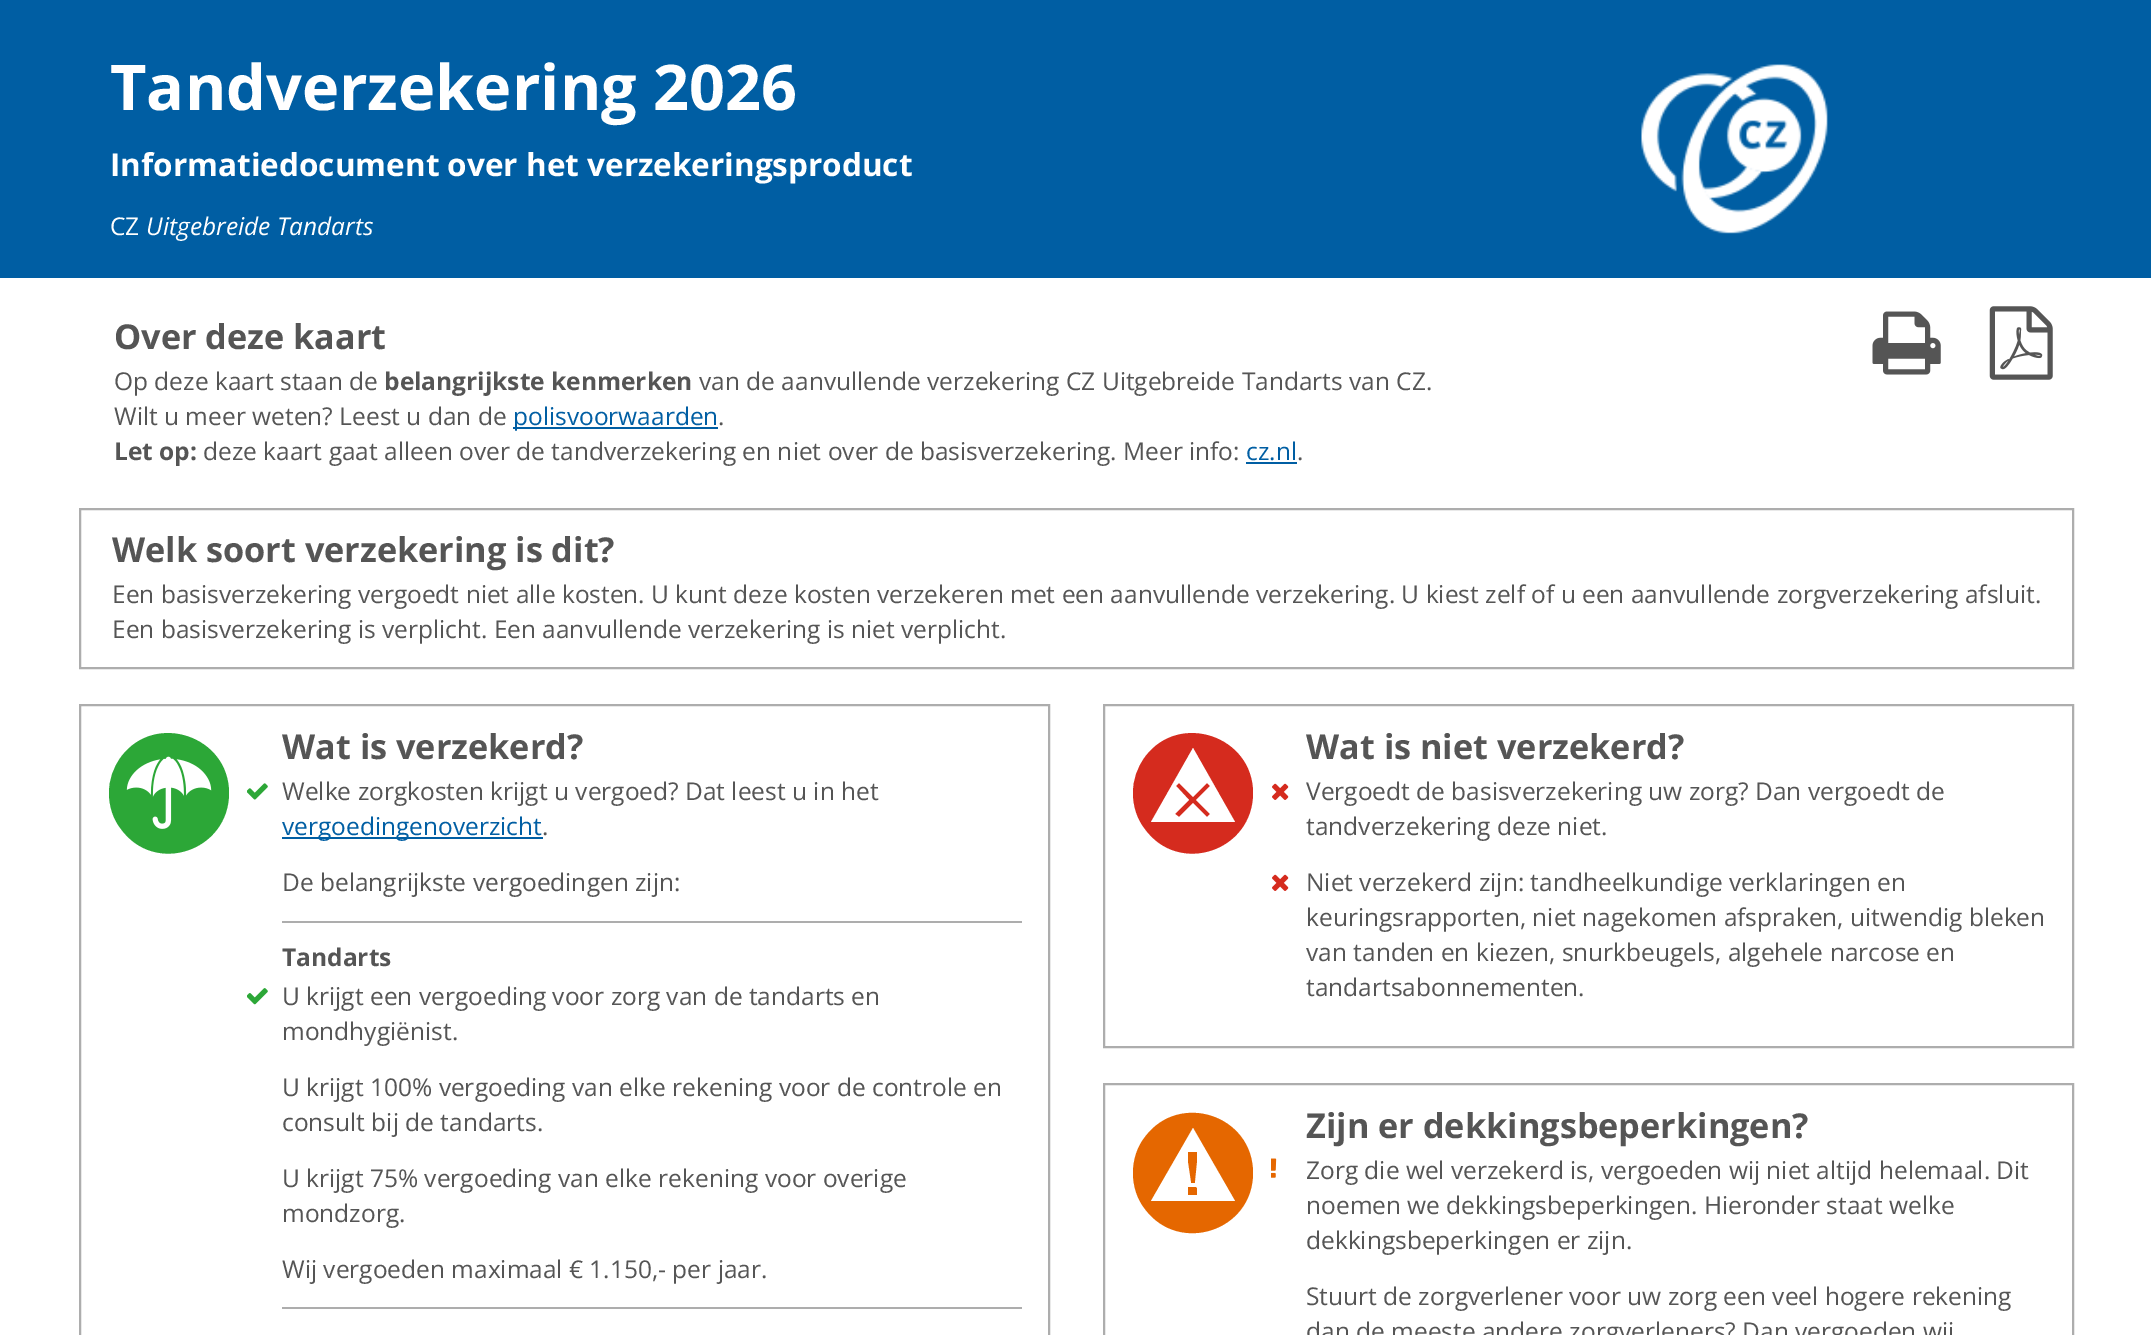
%!PS-Adobe-3.0
%%BoundingBox: 0 0 2151 1335
%%LanguageLevel: 3
%%Pages: 1
%%EndComments
%%BeginProlog
/setink { 3 { 255 div 3 1 roll } repeat setrgbcolor } def
/usefont { [ exch dup neg 0 0 3 -1 roll 0 0 ] selectfont } def
/drawtext { setink usefont moveto show } def
/fillbox { setink rectfill } def
/drawimage { 5 dict begin { /h /w /y /x /name } { exch def } forall
  gsave x y translate w h scale
  w h 8 [w 0 0 h 0 0] name (r) file false 3 colorimage grestore end } def
%%EndProlog
%%BeginSetup
<< /PageSize [2151 1335] >> setpagedevice
%%EndSetup
%%Page: 1 1
0 1335 translate 1 -1 scale
4 setmiterlimit
0 0 2151 1335 255 255 255 fillbox
0 0 2151 278 0 94 163 fillbox
(Tandverzekering 2026) 110 110 /OpenSans-Bold 63 255 255 255 drawtext
(Informatiedocument over het verzekeringsproduct) 110 176 /OpenSans-Bold 31.5 255 255 255 drawtext
(CZ) 110 235 /OpenSans-Regular 24.5 255 255 255 drawtext
(Uitgebreide Tandarts) 146 235 /OpenSans-Italic 24.5 255 255 255 drawtext
(assets/img1.rgb) 1641 64 187 170 drawimage
(Over deze kaart) 114 349 /OpenSans-Bold 34.25 85 85 85 drawtext
(Op deze kaart staan de) 114 390 /OpenSans-Regular 24.5 85 85 85 drawtext
(belangrijkste kenmerken) 384 390 /OpenSans-Bold 24.5 85 85 85 drawtext
(van de aanvullende verzekering CZ Uitgebreide Tandarts van CZ.) 699 390 /OpenSans-Regular 24.5 85 85 85 drawtext
(Wilt u meer weten? Leest u dan de) 114 425 /OpenSans-Regular 24.5 85 85 85 drawtext
513 427 205 2 0 94 163 fillbox
(polisvoorwaarden) 513 425 /OpenSans-Regular 24.5 0 94 163 drawtext
(.) 718 425 /OpenSans-Regular 24.5 85 85 85 drawtext
(Let op:) 114 460 /OpenSans-Bold 24.5 85 85 85 drawtext
(deze kaart gaat alleen over de tandverzekering en niet over de basisverzekering. Meer info:) 203 460 /OpenSans-Regular 24.5 85 85 85 drawtext
(cz.nl) 1246 460 /OpenSans-Regular 24.5 0 94 163 drawtext
1246 462 51 2 0 94 163 fillbox
(.) 1297 460 /OpenSans-Regular 24.5 85 85 85 drawtext
(assets/img2.rgb) 1872 311 69 64 drawimage
(assets/img3.rgb) 1989 306 64 74 drawimage
173 173 173 setink
2 setlinewidth
80 509 1993 159 rectstroke
(Welk soort verzekering is dit?) 112 562 /OpenSans-Bold 34.25 85 85 85 drawtext
(Een basisverzekering vergoedt niet alle kosten. U kunt deze kosten verzekeren met een aanvullende verzekering. U kiest zelf of u een aanvullende zorgverzekering afsluit.) 112 603 /OpenSans-Regular 24.5 85 85 85 drawtext
(Een basisverzekering is verplicht. Een aanvullende verzekering is niet verplicht.) 112 638 /OpenSans-Regular 24.5 85 85 85 drawtext
173 173 173 setink
80 705 969 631 rectstroke
44 167 55 setink
229 793 moveto 229 851 155 876 121 829 curveto 113 819 109 806 109 793 curveto 109 780 113 768 121 757 curveto 155 711 229 736 229 793 curveto closepath fill
(assets/img4.rgb) 126 756 86 73 drawimage
(Wat is verzekerd?) 282 759 /OpenSans-Bold 34.25 85 85 85 drawtext
(assets/img5.rgb) 247 783 21 17 drawimage
(Welke zorgkosten krijgt u vergoed? Dat leest u in het) 282 800 /OpenSans-Regular 24.5 85 85 85 drawtext
282 837 261 2 0 94 163 fillbox
(vergoedingenoverzicht) 282 835 /OpenSans-Regular 24.5 0 94 163 drawtext
(.) 542 835 /OpenSans-Regular 24.5 85 85 85 drawtext
(De belangrijkste vergoedingen zijn:) 282 891 /OpenSans-Regular 24.5 85 85 85 drawtext
282 921 740 2 173 173 173 fillbox
(Tandarts) 282 966 /OpenSans-Bold 24.5 85 85 85 drawtext
(assets/img6.rgb) 247 988 21 17 drawimage
(U krijgt een vergoeding voor zorg van de tandarts en) 282 1005 /OpenSans-Regular 24.5 85 85 85 drawtext
(mondhygiënist.) 282 1040 /OpenSans-Regular 24.5 85 85 85 drawtext
(U krijgt 100% vergoeding van elke rekening voor de controle en) 282 1096 /OpenSans-Regular 24.5 85 85 85 drawtext
(consult bij de tandarts.) 282 1131 /OpenSans-Regular 24.5 85 85 85 drawtext
(U krijgt 75% vergoeding van elke rekening voor overige) 282 1187 /OpenSans-Regular 24.5 85 85 85 drawtext
(mondzorg.) 282 1222 /OpenSans-Regular 24.5 85 85 85 drawtext
(Wij vergoeden maximaal € 1.150,- per jaar.) 282 1278 /OpenSans-Regular 24.5 85 85 85 drawtext
282 1307 740 2 173 173 173 fillbox
1104 705 969 342 rectstroke
213 43 30 setink
1253 793 moveto 1253 851 1179 876 1145 829 curveto 1137 819 1133 806 1133 793 curveto 1133 780 1137 768 1145 757 curveto 1179 711 1253 736 1253 793 curveto closepath fill
255 255 255 setink
1193 748 moveto 1151 822 lineto 1235 822 lineto closepath 1207 817 moveto 1193 803 lineto 1179 817 lineto 1175 814 lineto 1189 800 lineto 1176 786 lineto 1179 783 lineto 1193 797 lineto 1207 783 lineto 1210 786 lineto 1196 800 lineto 1210 814 lineto closepath fill
(Wat is niet verzekerd?) 1306 759 /OpenSans-Bold 34.25 85 85 85 drawtext
(assets/img7.rgb) 1272 783 17 17 drawimage
(Vergoedt de basisverzekering uw zorg? Dan vergoedt de) 1306 800 /OpenSans-Regular 24.5 85 85 85 drawtext
(tandverzekering deze niet.) 1306 835 /OpenSans-Regular 24.5 85 85 85 drawtext
(assets/img7.rgb) 1272 874 17 17 drawimage
(Niet verzekerd zijn: tandheelkundige verklaringen en) 1306 891 /OpenSans-Regular 24.5 85 85 85 drawtext
(keuringsrapporten, niet nagekomen afspraken, uitwendig bleken) 1306 926 /OpenSans-Regular 24.5 85 85 85 drawtext
(van tanden en kiezen, snurkbeugels, algehele narcose en) 1306 961 /OpenSans-Regular 24.5 85 85 85 drawtext
(tandartsabonnementen.) 1306 996 /OpenSans-Regular 24.5 85 85 85 drawtext
173 173 173 setink
1104 1084 969 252 rectstroke
229 103 0 setink
1253 1173 moveto 1253 1231 1179 1255 1145 1209 curveto 1137 1199 1133 1186 1133 1173 curveto 1133 1160 1137 1147 1145 1137 curveto 1179 1091 1253 1115 1253 1173 curveto closepath fill
255 255 255 setink
1193 1128 moveto 1151 1201 lineto 1235 1201 lineto closepath 1197 1195 moveto 1188 1195 lineto 1188 1187 lineto 1199 1187 1197 1185 1197 1195 curveto closepath 1195 1183 moveto 1191 1183 lineto 1188 1163 lineto 1188 1152 lineto 1197 1152 lineto 1197 1163 lineto closepath fill
(Zijn er dekkingsbeperkingen?) 1306 1138 /OpenSans-Bold 34.25 85 85 85 drawtext
(assets/img8.rgb) 1271 1158 6 20 drawimage
(Zorg die wel verzekerd is, vergoeden wij niet altijd helemaal. Dit) 1306 1179 /OpenSans-Regular 24.5 85 85 85 drawtext
(noemen we dekkingsbeperkingen. Hieronder staat welke) 1306 1214 /OpenSans-Regular 24.5 85 85 85 drawtext
(dekkingsbeperkingen er zijn.) 1306 1249 /OpenSans-Regular 24.5 85 85 85 drawtext
(Stuurt de zorgverlener voor uw zorg een veel hogere rekening) 1306 1305 /OpenSans-Regular 24.5 85 85 85 drawtext
(dan de meeste andere zorgverleners? Dan vergoeden wij) 1306 1340 /OpenSans-Regular 24.5 85 85 85 drawtext
showpage
%%EOF
